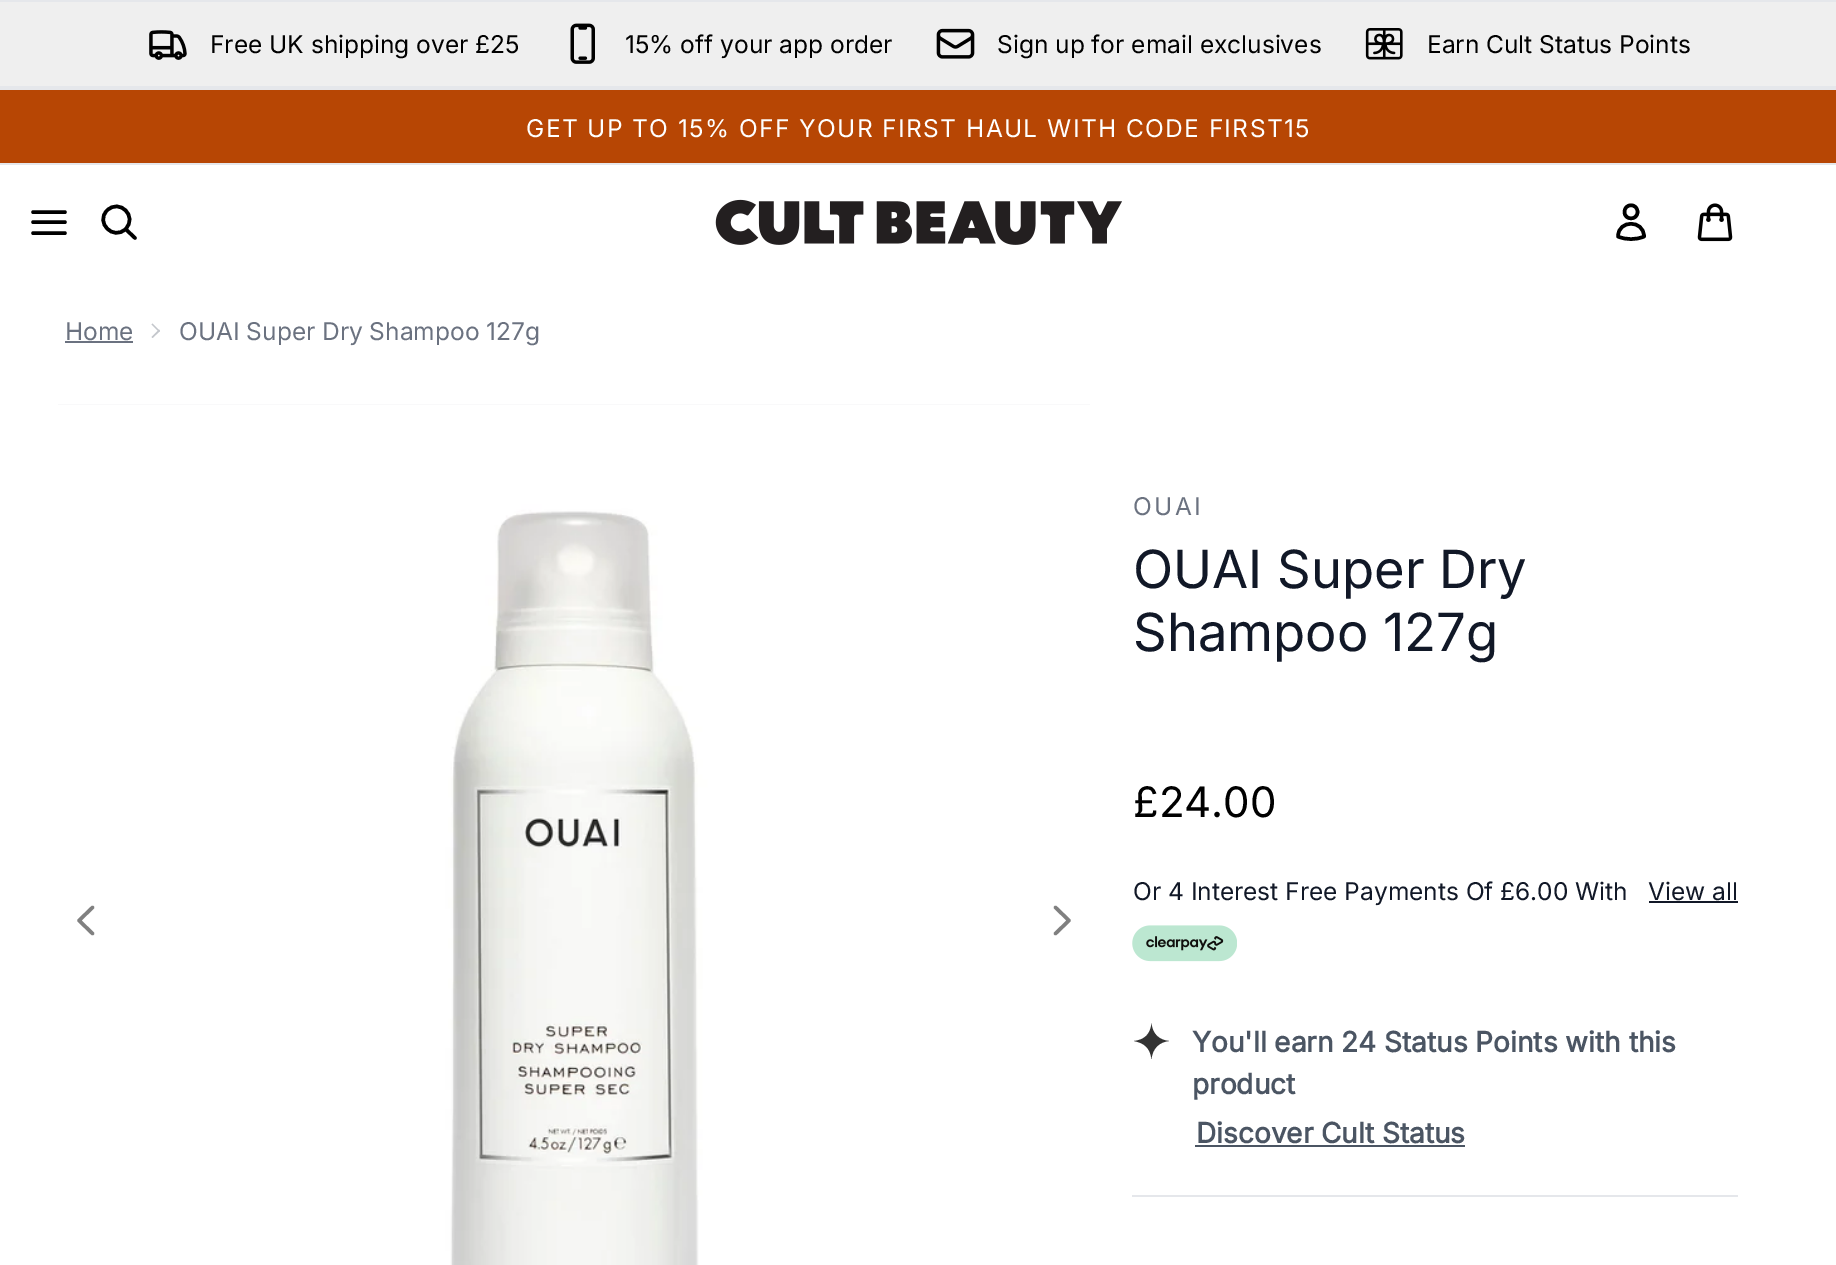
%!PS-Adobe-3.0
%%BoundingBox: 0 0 1836 1265
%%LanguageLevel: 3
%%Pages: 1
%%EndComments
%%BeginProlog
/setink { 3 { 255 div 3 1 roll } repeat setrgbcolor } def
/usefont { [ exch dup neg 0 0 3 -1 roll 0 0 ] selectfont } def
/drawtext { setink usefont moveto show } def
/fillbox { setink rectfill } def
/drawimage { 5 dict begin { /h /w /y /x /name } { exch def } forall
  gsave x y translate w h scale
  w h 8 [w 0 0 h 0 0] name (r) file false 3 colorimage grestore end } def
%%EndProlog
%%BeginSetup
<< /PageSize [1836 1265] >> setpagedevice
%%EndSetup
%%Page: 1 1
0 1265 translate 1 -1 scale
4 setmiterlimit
0 0 1836 1265 255 255 255 fillbox
0 2 1836 84 239 239 239 fillbox
0 0 1836 2 229 231 235 fillbox
(assets/img1.rgb) 149 30 38 30 drawimage
(Free UK shipping over £25) 210 53 /Inter-Regular 24.5 0 0 0 drawtext
(assets/img2.rgb) 570 23 25 41 drawimage
(15% off your app order) 625 53 /Inter-Regular 24.5 0 0 0 drawtext
(assets/img3.rgb) 936 28 39 31 drawimage
(Sign up for email exclusives) 997 53 /Inter-Regular 24.5 0 0 0 drawtext
(assets/img4.rgb) 1365 28 38 32 drawimage
(Earn Cult Status Points) 1427 53 /Inter-Regular 24.5 0 0 0 drawtext
0 90 1836 73 183 70 4 fillbox
0 86 1836 4 229 231 235 fillbox
0 163 1836 2 229 231 235 fillbox
255 255 255 setink
526 137 moveto 1.4 0 (GET UP TO 15% OFF YOUR FIRST HAUL WITH CODE FIRST15) ashow
0 0 0 setink
3.5 setlinewidth
1 setlinecap
1 setlinejoin
33 222 moveto 65 222 lineto 33 212 moveto 65 212 lineto 33 233 moveto 65 233 lineto stroke
135 238 moveto 125.5 229 lineto 125.5 229 moveto 138 216.5 119.5 198 107 210.5 curveto 95 222.5 113.5 241 125.5 229 curveto closepath stroke
(assets/img5.rgb) 715 199 407 46 drawimage
1637.5 212 moveto 1637.5 220.5 1624.5 220.5 1624.5 212 curveto 1624.5 203 1637.5 203 1637.5 212 curveto closepath 1618 236.5 moveto 1618 219.5 1644 219.5 1644 236.5 curveto 1636 240 1626 240 1618 236.5 curveto closepath stroke
(assets/img6.rgb) 1697 203 36 39 drawimage
(Home) 65 340 /Inter-Regular 24.5 107 114 128 drawtext
65 341 68 2 107 114 128 fillbox
196 199 204 setink
152.5 323.5 moveto 160 331 lineto 159 332 lineto 151.5 324.5 lineto closepath fill
159 329.5 moveto 160 331 lineto 152.5 338 lineto 151.5 337 lineto closepath fill
(OUAI Super Dry Shampoo 127g) 179 340 /Inter-Regular 24.5 107 114 128 drawtext
58 404 1032 1 241 242 243 fillbox
(assets/img7.rgb) 58 404 1032 861 drawimage
128 128 128 setink
92.5 933.5 moveto 79 920.5 lineto 92.5 907.5 lineto stroke
1055.5 907.5 moveto 1069 920.5 lineto 1055.5 933.5 lineto stroke
107 114 128 setink
1133 515 moveto 2.5 0 (OUAI) ashow
(OUAI Super Dry) 1133 588 /Inter-Regular 52.5 17 24 39 drawtext
(Shampoo 127g) 1133 651 /Inter-Regular 52.5 17 24 39 drawtext
(£24.00) 1133 817 /Inter-Regular 42 0 0 0 drawtext
(Or 4 Interest Free Payments Of £6.00 With) 1133 900 /Inter-Regular 24.5 17 24 39 drawtext
(assets/img8.rgb) 1132 925 105 37 drawimage
(View all) 1648 900 /Inter-Regular 24.5 17 24 39 drawtext
1649 901 89 2 17 24 39 fillbox
51 51 51 setink
1151.5 1023.5 moveto 1152.5 1034 1159 1040 1169 1041 curveto 1159 1042 1152.5 1048.5 1151.5 1059 curveto 1150 1048 1144.5 1043 1134 1041 curveto 1144.5 1040 1150.5 1034 1151.5 1023.5 curveto closepath fill
(You'll earn 24 Status Points with this) 1192 1052 /Inter-Bold 28 75 85 99 drawtext
(product) 1192 1094 /Inter-Bold 28 75 85 99 drawtext
(Discover Cult Status) 1196 1143 /Inter-Bold 28 75 85 99 drawtext
1195 1145 270 2 75 85 99 fillbox
1132 1195 606 2 229 231 235 fillbox
showpage
%%EOF
